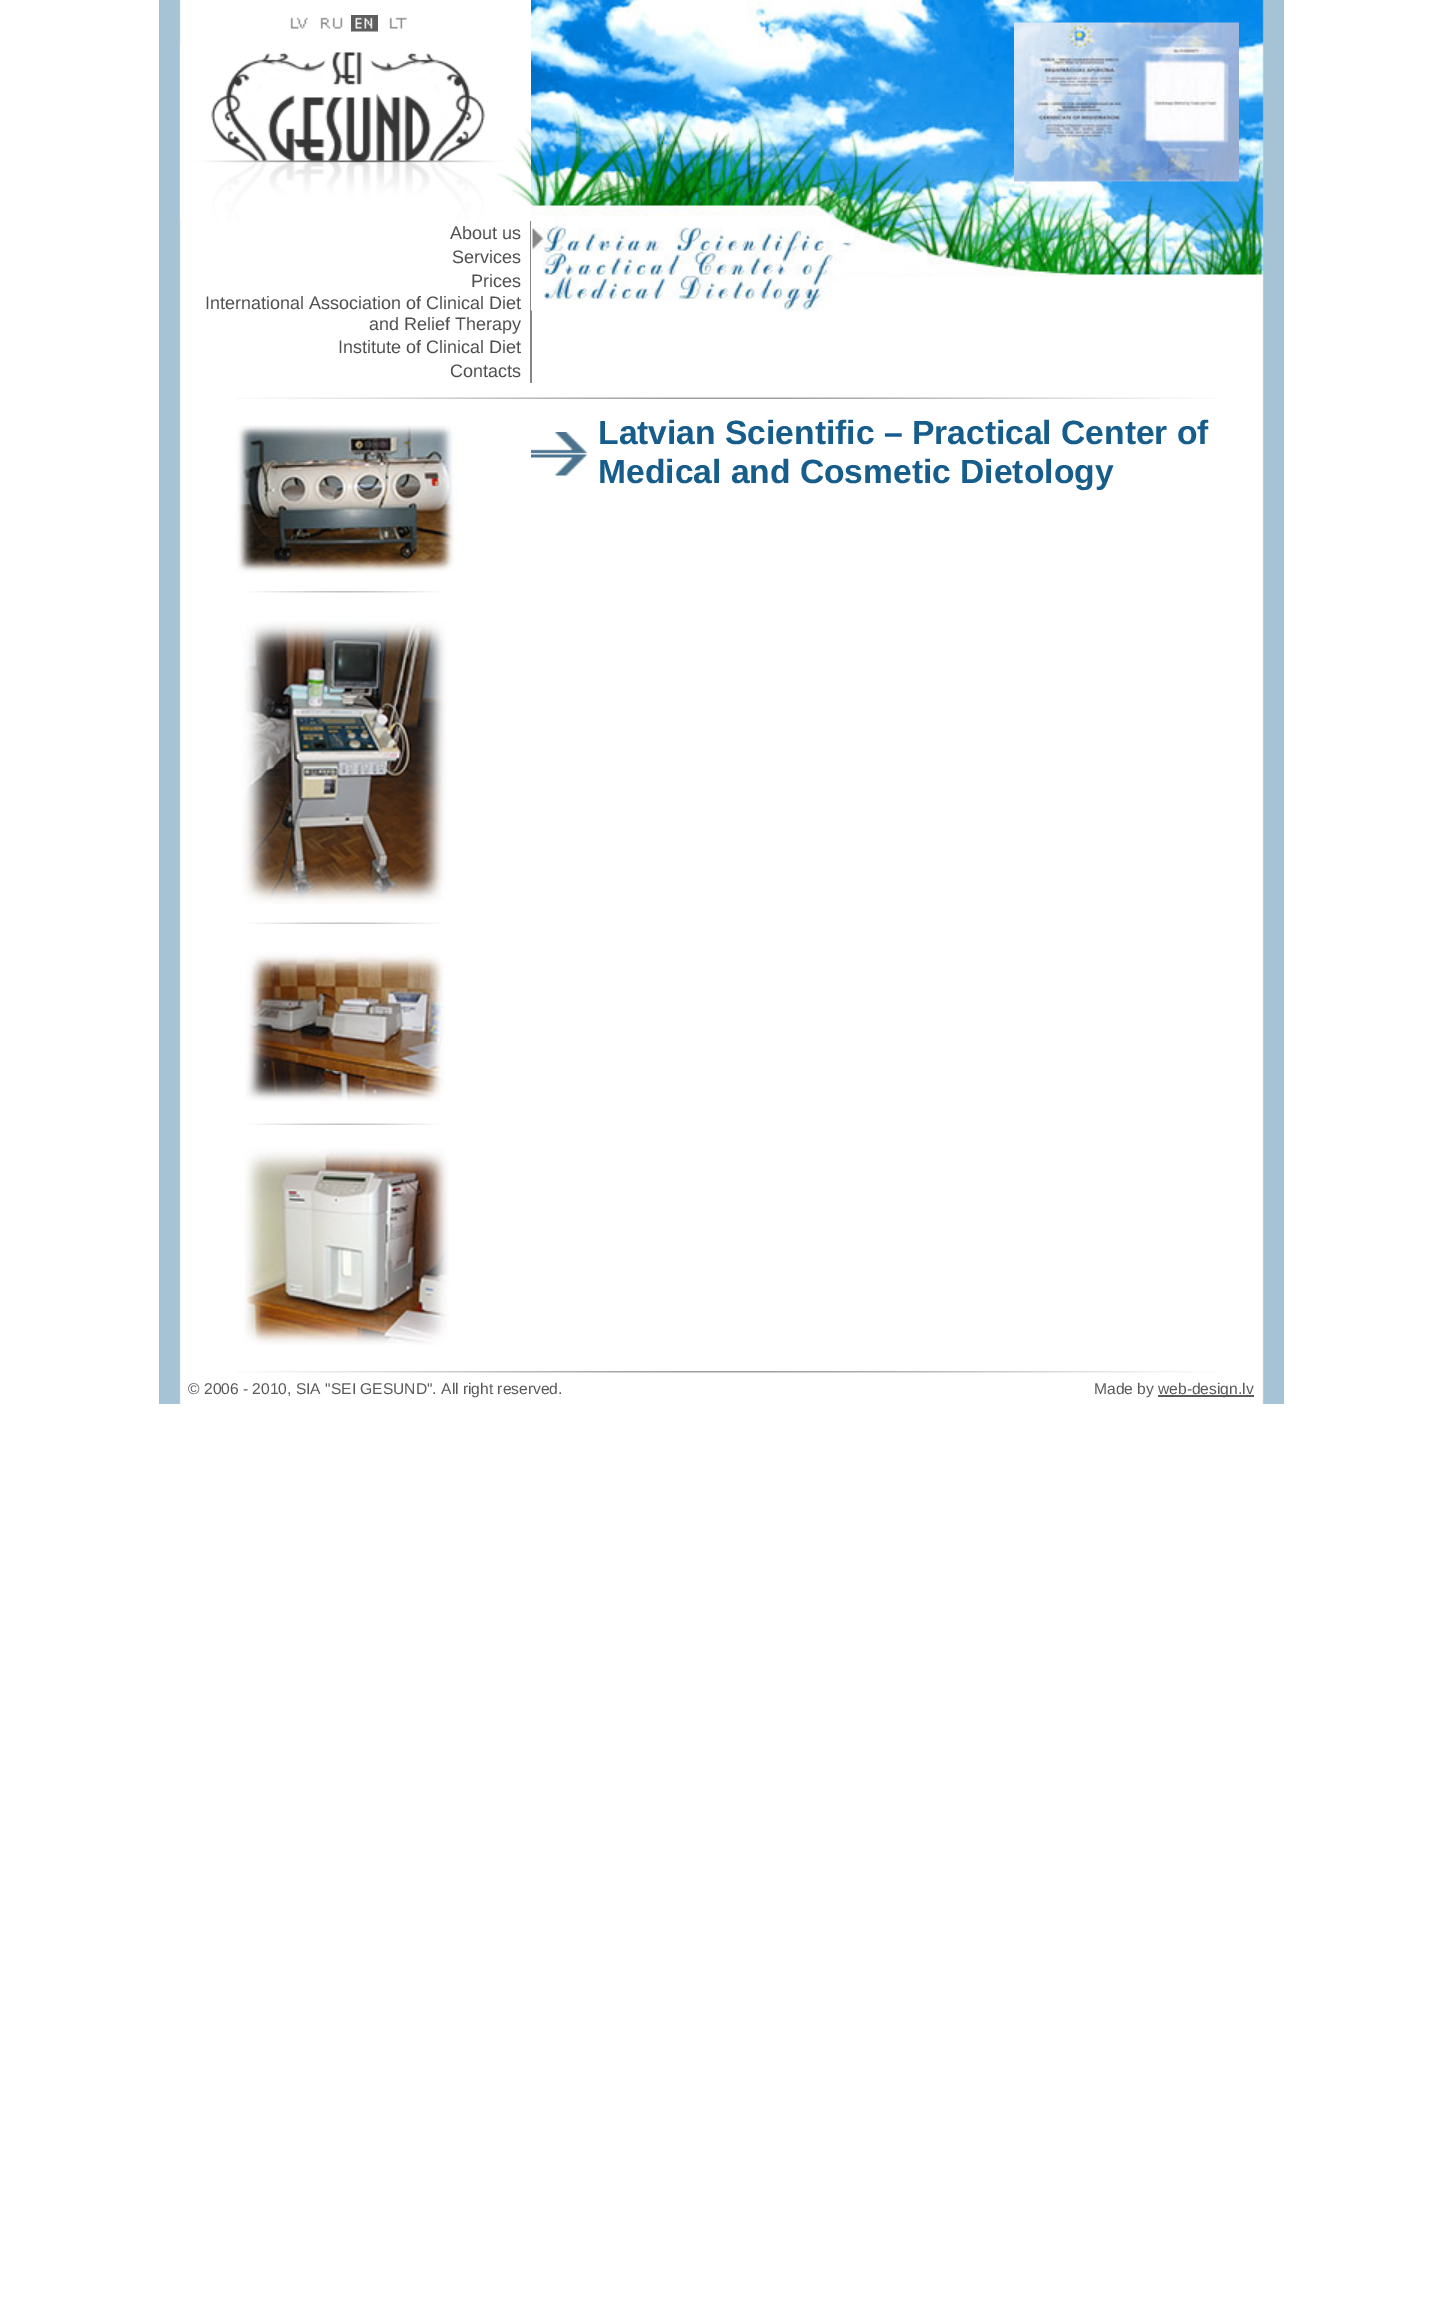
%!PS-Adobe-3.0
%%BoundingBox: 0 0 1441 2318
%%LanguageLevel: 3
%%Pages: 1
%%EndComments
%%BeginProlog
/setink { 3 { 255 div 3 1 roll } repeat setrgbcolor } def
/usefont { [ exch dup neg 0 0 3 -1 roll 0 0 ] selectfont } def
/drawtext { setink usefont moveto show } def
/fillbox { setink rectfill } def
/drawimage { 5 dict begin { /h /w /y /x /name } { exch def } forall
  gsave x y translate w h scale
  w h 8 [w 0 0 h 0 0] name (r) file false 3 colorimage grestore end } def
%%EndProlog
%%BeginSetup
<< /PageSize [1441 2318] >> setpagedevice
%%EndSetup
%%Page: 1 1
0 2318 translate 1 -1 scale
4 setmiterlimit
0 0 1441 2318 255 255 255 fillbox
(assets/img1.rgb) 159 0 1125 1404 drawimage
(assets/img2.rgb) 290 17 18 12 drawimage
(assets/img3.rgb) 320 17 23 12 drawimage
(assets/img4.rgb) 351 15 27 17 drawimage
(assets/img5.rgb) 389 17 18 12 drawimage
(assets/img6.rgb) 180 43 351 178 drawimage
(About us) 450 239 /LiberationSans-Regular 18 79 79 79 drawtext
530 221 2 162 134 134 134 fillbox
(Services) 452 263 /LiberationSans-Regular 18 79 79 79 drawtext
(Prices) 471 287 /LiberationSans-Regular 18 79 79 79 drawtext
(International Association of Clinical Diet) 205 309 /LiberationSans-Regular 18 79 79 79 drawtext
(and Relief Therapy) 369 330 /LiberationSans-Regular 18 79 79 79 drawtext
(Institute of Clinical Diet) 338 353 /LiberationSans-Regular 18 79 79 79 drawtext
(Contacts) 450 377 /LiberationSans-Regular 18 79 79 79 drawtext
(assets/img7.rgb) 531 0 733 311 drawimage
(assets/img8.rgb) 1014 22 225 160 drawimage
(assets/img9.rgb) 236 397 980 2 drawimage
(assets/img10.rgb) 236 425 222 148 drawimage
(assets/img11.rgb) 248 591 192 2 drawimage
(assets/img12.rgb) 242 620 205 284 drawimage
(assets/img13.rgb) 248 922 192 2 drawimage
(assets/img14.rgb) 245 952 200 149 drawimage
(assets/img13.rgb) 248 1123 192 2 drawimage
(assets/img15.rgb) 244 1148 205 197 drawimage
(assets/img16.rgb) 531 432 57 44 drawimage
(Latvian Scientific – Practical Center of) 598 444 /LiberationSans-Bold 33.6 23 93 140 drawtext
(Medical and Cosmetic Dietology) 598 483 /LiberationSans-Bold 33.6 23 93 140 drawtext
(assets/img17.rgb) 236 1371 980 2 drawimage
(© 2006 - 2010, SIA "SEI GESUND". All right reserved.) 188 1394 /LiberationSans-Regular 15.6 90 90 90 drawtext
(Made by) 1094 1394 /LiberationSans-Regular 15.6 90 90 90 drawtext
1158 1395 96 2 90 90 90 fillbox
(web-design.lv) 1158 1394 /LiberationSans-Regular 15.6 90 90 90 drawtext
showpage
%%EOF
